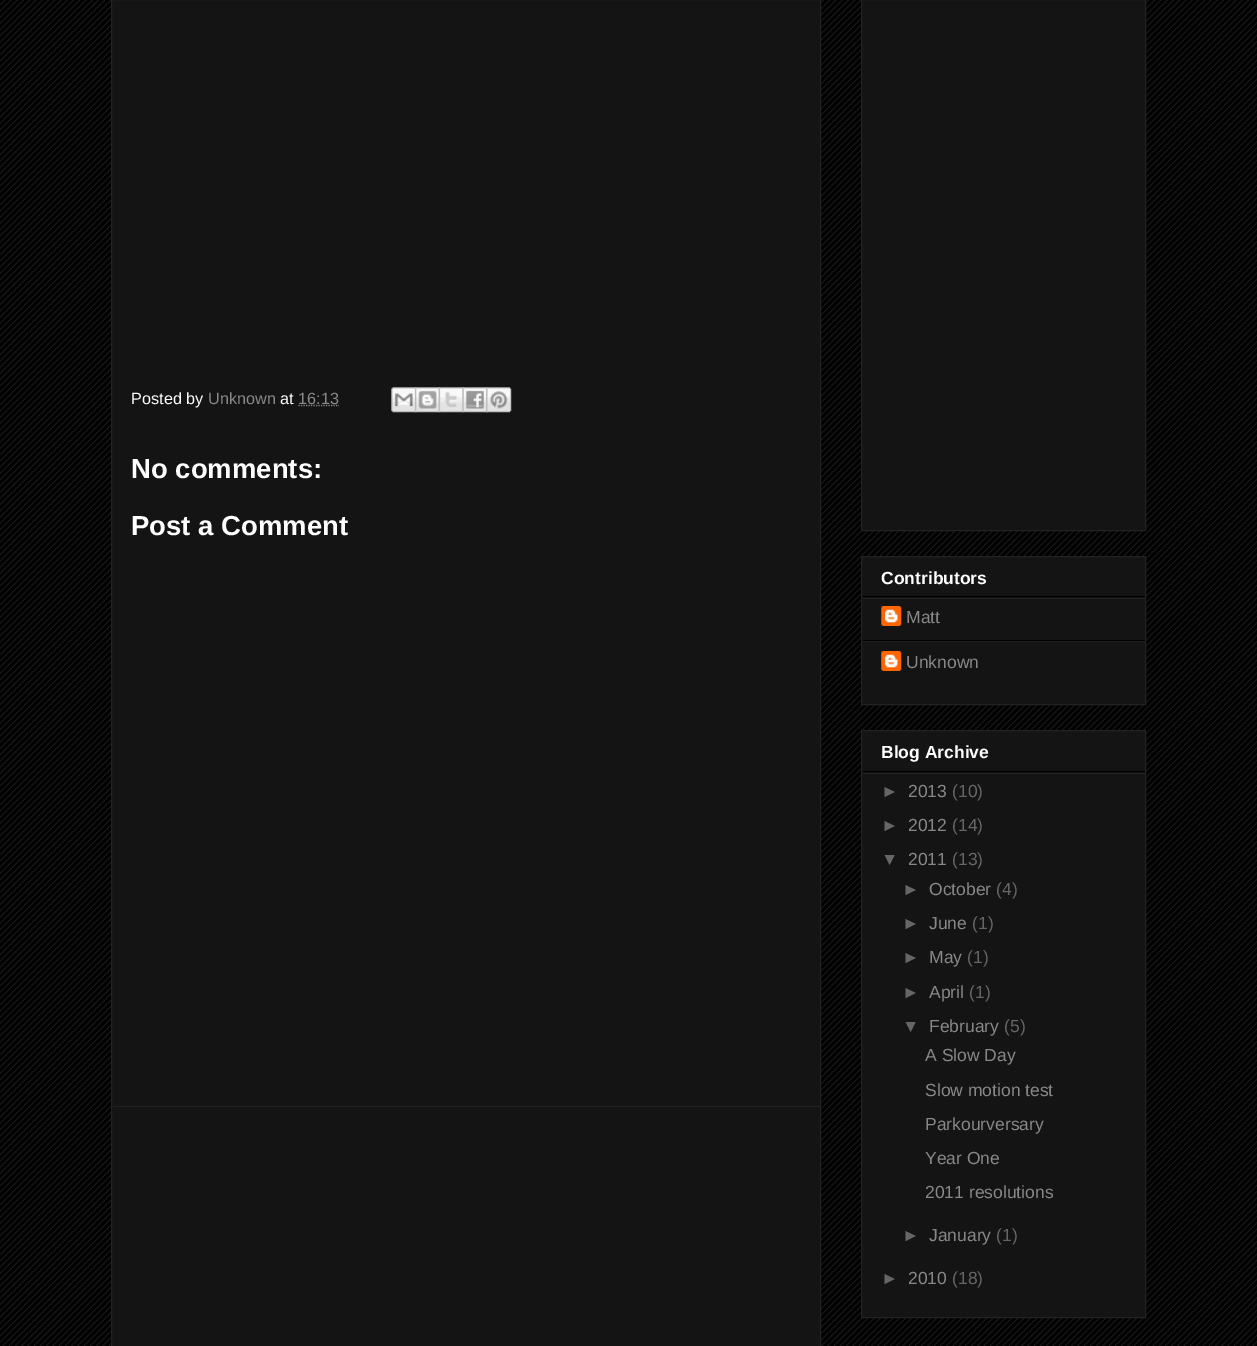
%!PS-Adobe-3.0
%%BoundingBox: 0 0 1257 1346
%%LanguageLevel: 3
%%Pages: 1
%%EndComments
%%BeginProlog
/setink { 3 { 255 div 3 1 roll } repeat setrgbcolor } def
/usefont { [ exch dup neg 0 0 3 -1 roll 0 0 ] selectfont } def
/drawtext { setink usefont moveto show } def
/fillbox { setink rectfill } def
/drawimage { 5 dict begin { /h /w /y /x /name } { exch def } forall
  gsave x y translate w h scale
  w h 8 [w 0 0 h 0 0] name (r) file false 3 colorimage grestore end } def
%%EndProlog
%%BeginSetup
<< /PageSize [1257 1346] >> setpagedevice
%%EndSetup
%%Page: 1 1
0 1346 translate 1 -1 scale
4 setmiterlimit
0 0 1257 1346 0 0 0 fillbox
(assets/img1.rgb) 0 0 1257 1346 drawimage
20 20 20 setink
111.5 -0.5 moveto 820.5 -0.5 lineto 820.5 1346.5 lineto 111.5 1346.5 lineto closepath gsave fill grestore
34 34 34 setink
stroke
(Posted by) 131 404 /LiberationSans-Regular 16.25 255 255 255 drawtext
(Unknown) 208 404 /LiberationSans-Regular 16.25 136 136 136 drawtext
(at) 280 404 /LiberationSans-Regular 16.25 255 255 255 drawtext
136 136 136 setink
1.2 setlinewidth
[1.25 1.25] 0 setdash
298.5 405.5 moveto 339 405.5 lineto stroke
(16:13) 298 404 /LiberationSans-Regular 16.25 136 136 136 drawtext
(assets/img2.rgb) 391 387 26 26 drawimage
(assets/img3.rgb) 415 387 25 26 drawimage
(assets/img4.rgb) 438 387 26 26 drawimage
(assets/img5.rgb) 462 387 26 26 drawimage
(assets/img6.rgb) 486 387 26 26 drawimage
(No comments:) 131 478 /LiberationSans-Bold 27.5 255 255 255 drawtext
(Post a Comment) 131 535 /LiberationSans-Bold 27.5 255 255 255 drawtext
113 1106 707 1 34 34 34 fillbox
20 20 20 setink
861.5 -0.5 moveto 1145.5 -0.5 lineto 1145.5 530.5 lineto 861.5 530.5 lineto closepath gsave fill grestore
34 34 34 setink
1 setlinewidth
[] 0 setdash
stroke
20 20 20 setink
861.5 556.5 moveto 1145.5 556.5 lineto 1145.5 704.5 lineto 861.5 704.5 lineto closepath gsave fill grestore
34 34 34 setink
stroke
863 596 282 1 0 0 0 fillbox
(Contributors) 881 584 /LiberationSans-Bold 17.5 255 255 255 drawtext
863 598 282 1 34 34 34 fillbox
863 640 282 1 0 0 0 fillbox
(assets/img7.rgb) 881 606 21 20 drawimage
(Matt) 906 623 /LiberationSans-Regular 17.5 136 136 136 drawtext
863 641 282 1 34 34 34 fillbox
(assets/img7.rgb) 881 651 21 20 drawimage
(Unknown) 906 668 /LiberationSans-Regular 17.5 136 136 136 drawtext
20 20 20 setink
861.5 730.5 moveto 1145.5 730.5 lineto 1145.5 1317.5 lineto 861.5 1317.5 lineto closepath gsave fill grestore
34 34 34 setink
stroke
863 771 282 1 0 0 0 fillbox
(Blog Archive) 881 758 /LiberationSans-Bold 17.5 255 255 255 drawtext
863 773 282 1 34 34 34 fillbox
(►) 881 797 /LiberationSans-Regular 17.5 102 102 102 drawtext
(2013) 908 797 /LiberationSans-Regular 17.5 136 136 136 drawtext
(\(10\)) 952 797 /LiberationSans-Regular 17.5 102 102 102 drawtext
(►) 881 831 /LiberationSans-Regular 17.5 102 102 102 drawtext
(2012) 908 831 /LiberationSans-Regular 17.5 136 136 136 drawtext
(\(14\)) 952 831 /LiberationSans-Regular 17.5 102 102 102 drawtext
(▼) 881 865 /LiberationSans-Regular 17.5 102 102 102 drawtext
(2011) 908 865 /LiberationSans-Regular 17.5 136 136 136 drawtext
(\(13\)) 952 865 /LiberationSans-Regular 17.5 102 102 102 drawtext
(►) 902 895 /LiberationSans-Regular 17.5 102 102 102 drawtext
(October) 929 895 /LiberationSans-Regular 17.5 136 136 136 drawtext
(\(4\)) 996 895 /LiberationSans-Regular 17.5 102 102 102 drawtext
(►) 902 929 /LiberationSans-Regular 17.5 102 102 102 drawtext
(June) 929 929 /LiberationSans-Regular 17.5 136 136 136 drawtext
(\(1\)) 972 929 /LiberationSans-Regular 17.5 102 102 102 drawtext
(►) 902 963 /LiberationSans-Regular 17.5 102 102 102 drawtext
(May) 929 963 /LiberationSans-Regular 17.5 136 136 136 drawtext
(\(1\)) 967 963 /LiberationSans-Regular 17.5 102 102 102 drawtext
(►) 902 998 /LiberationSans-Regular 17.5 102 102 102 drawtext
(April) 929 998 /LiberationSans-Regular 17.5 136 136 136 drawtext
(\(1\)) 969 998 /LiberationSans-Regular 17.5 102 102 102 drawtext
(▼) 902 1032 /LiberationSans-Regular 17.5 102 102 102 drawtext
(February) 929 1032 /LiberationSans-Regular 17.5 136 136 136 drawtext
(\(5\)) 1004 1032 /LiberationSans-Regular 17.5 102 102 102 drawtext
(A Slow Day) 925 1061 /LiberationSans-Regular 17.5 136 136 136 drawtext
(Slow motion test) 925 1096 /LiberationSans-Regular 17.5 136 136 136 drawtext
(Parkourversary) 925 1130 /LiberationSans-Regular 17.5 136 136 136 drawtext
(Year One) 925 1164 /LiberationSans-Regular 17.5 136 136 136 drawtext
(2011 resolutions) 925 1198 /LiberationSans-Regular 17.5 136 136 136 drawtext
(►) 902 1241 /LiberationSans-Regular 17.5 102 102 102 drawtext
(January) 929 1241 /LiberationSans-Regular 17.5 136 136 136 drawtext
(\(1\)) 996 1241 /LiberationSans-Regular 17.5 102 102 102 drawtext
(►) 881 1284 /LiberationSans-Regular 17.5 102 102 102 drawtext
(2010) 908 1284 /LiberationSans-Regular 17.5 136 136 136 drawtext
(\(18\)) 952 1284 /LiberationSans-Regular 17.5 102 102 102 drawtext
showpage
%%EOF
